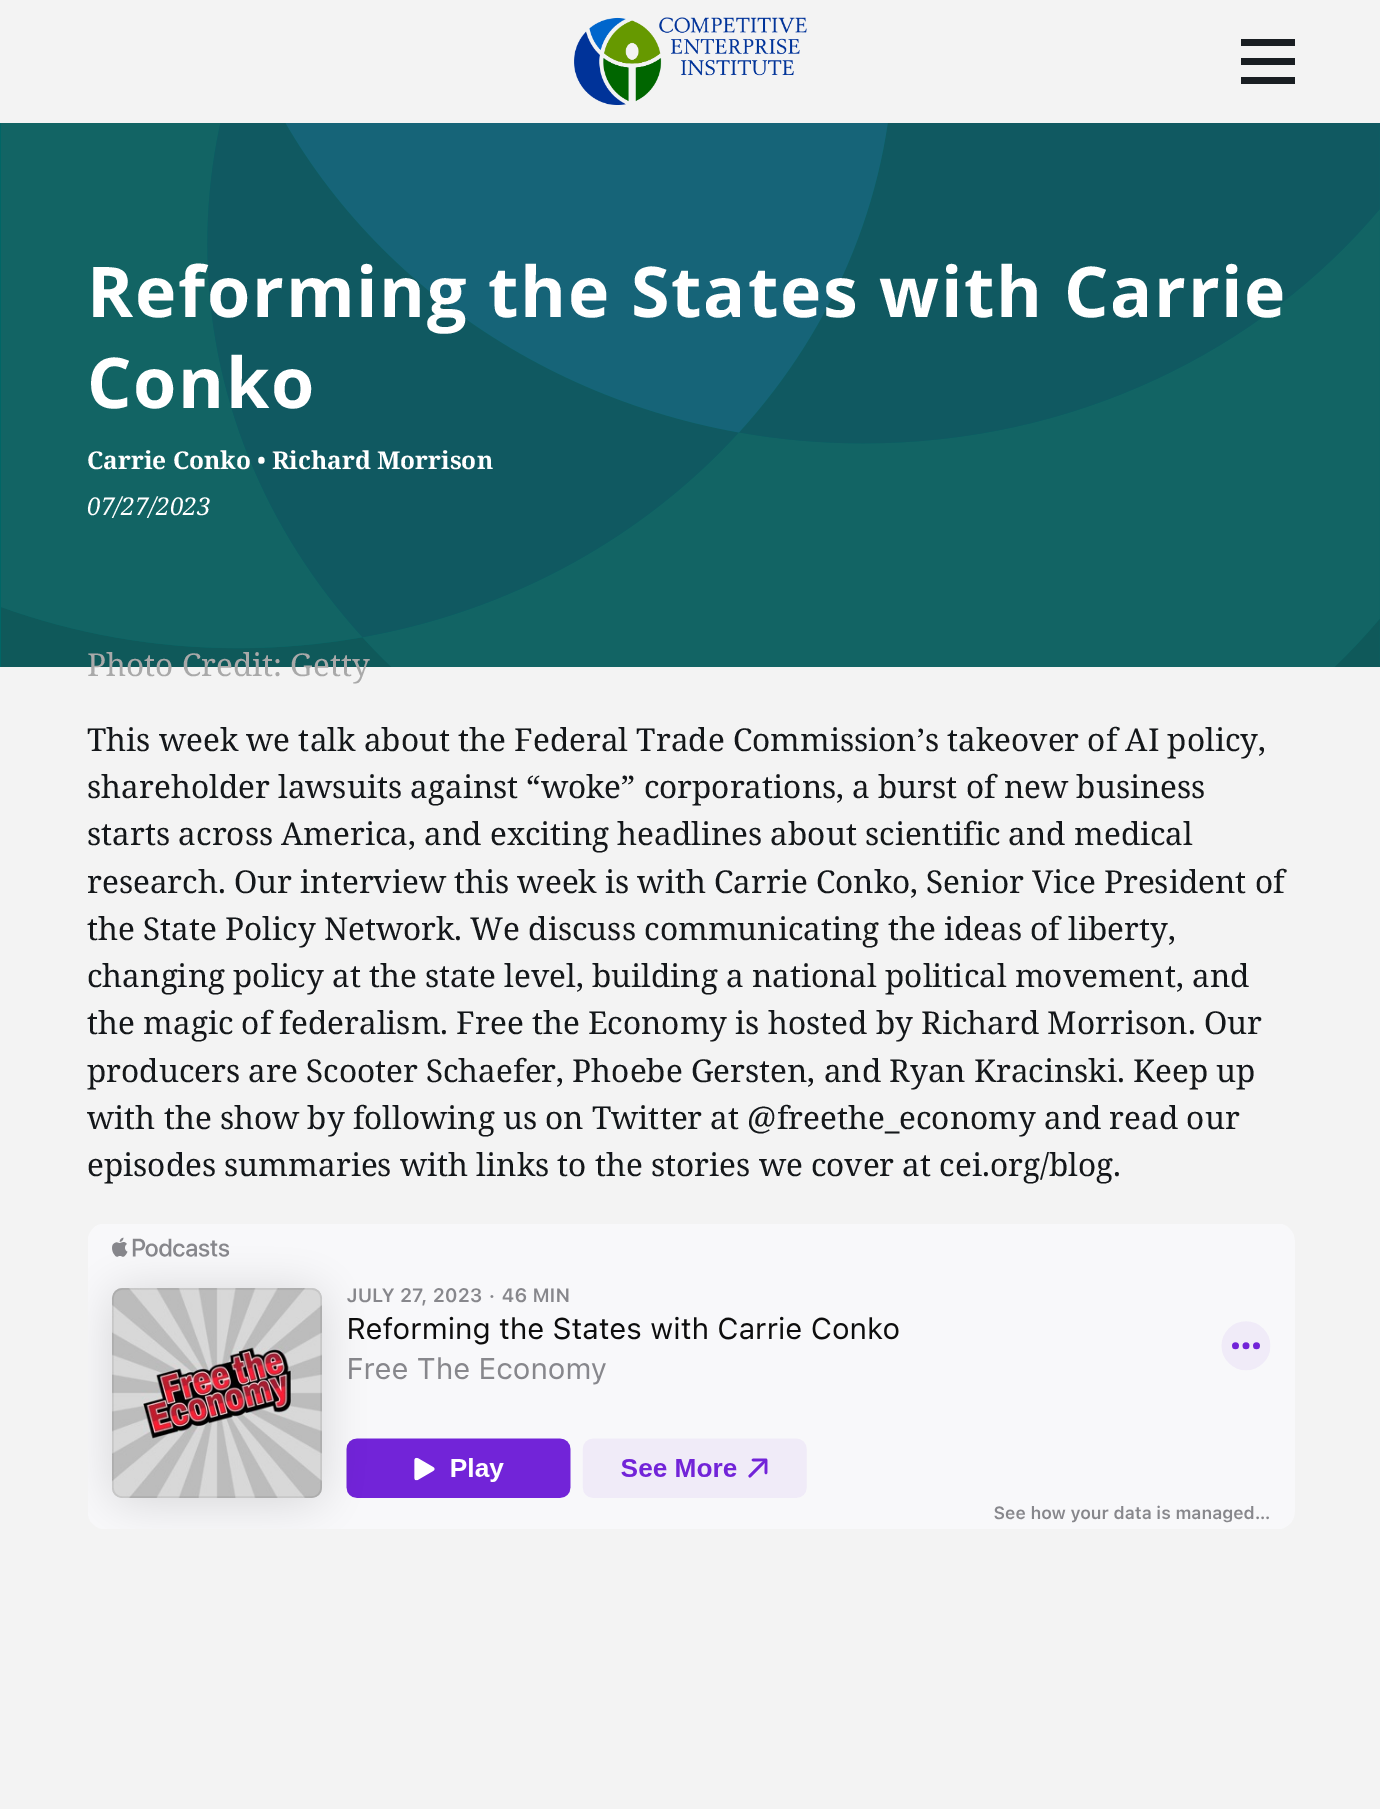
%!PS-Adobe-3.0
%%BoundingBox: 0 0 1380 1809
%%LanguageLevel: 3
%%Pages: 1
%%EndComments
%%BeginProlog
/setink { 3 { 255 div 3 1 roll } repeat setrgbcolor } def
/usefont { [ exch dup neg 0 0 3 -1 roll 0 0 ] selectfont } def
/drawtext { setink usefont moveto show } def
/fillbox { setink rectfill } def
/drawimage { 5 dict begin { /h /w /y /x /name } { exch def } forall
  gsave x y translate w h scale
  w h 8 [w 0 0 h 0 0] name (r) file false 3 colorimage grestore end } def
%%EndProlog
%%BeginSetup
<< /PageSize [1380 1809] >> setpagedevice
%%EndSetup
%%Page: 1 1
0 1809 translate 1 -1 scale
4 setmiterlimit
0 0 1380 1809 243 243 243 fillbox
(assets/img1.rgb) 574 17 233 88 drawimage
1241 39 54 7 25 30 34 fillbox
1241 58 54 7 25 30 34 fillbox
1241 77 54 7 25 30 34 fillbox
0 123 1380 544 0 102 102 fillbox
(assets/img2.rgb) 1 123 1379 544 drawimage
/OpenSans-Bold 70 usefont
255 255 255 setink
87 317 moveto 1.75 0 (Reforming the States with Carrie) ashow
87 408 moveto 1.75 0 (Conko) ashow
(Carrie Conko) 87 469 /NotoSerif-Bold 24.5 255 255 255 drawtext
(•) 257 469 /NotoSerif-Regular 24.5 255 255 255 drawtext
(Richard Morrison) 272 469 /NotoSerif-Bold 24.5 255 255 255 drawtext
(07/27/2023) 87 515 /NotoSerif-Italic 24.5 255 255 255 drawtext
(Photo Credit: Getty) 87 676 /NotoSerif-Regular 31.5 169 169 169 drawtext
(This week we talk about the Federal Trade Commission’s takeover of AI policy,) 87 751 /NotoSerif-Regular 31.5 20 23 26 drawtext
(shareholder lawsuits against “woke” corporations, a burst of new business) 87 798 /NotoSerif-Regular 31.5 20 23 26 drawtext
(starts across America, and exciting headlines about scientific and medical) 87 845 /NotoSerif-Regular 31.5 20 23 26 drawtext
(research. Our interview this week is with Carrie Conko, Senior Vice President of) 87 893 /NotoSerif-Regular 31.5 20 23 26 drawtext
(the State Policy Network. We discuss communicating the ideas of liberty,) 87 940 /NotoSerif-Regular 31.5 20 23 26 drawtext
(changing policy at the state level, building a national political movement, and) 87 987 /NotoSerif-Regular 31.5 20 23 26 drawtext
(the magic of federalism. Free the Economy is hosted by Richard Morrison. Our) 87 1034 /NotoSerif-Regular 31.5 20 23 26 drawtext
(producers are Scooter Schaefer, Phoebe Gersten, and Ryan Kracinski. Keep up) 87 1082 /NotoSerif-Regular 31.5 20 23 26 drawtext
(with the show by following us on Twitter at @freethe_economy and read our) 87 1129 /NotoSerif-Regular 31.5 20 23 26 drawtext
(episodes summaries with links to the stories we cover at cei.org/blog.) 87 1176 /NotoSerif-Regular 31.5 20 23 26 drawtext
(assets/img3.rgb) 88 1224 1207 305 drawimage
showpage
%%EOF
